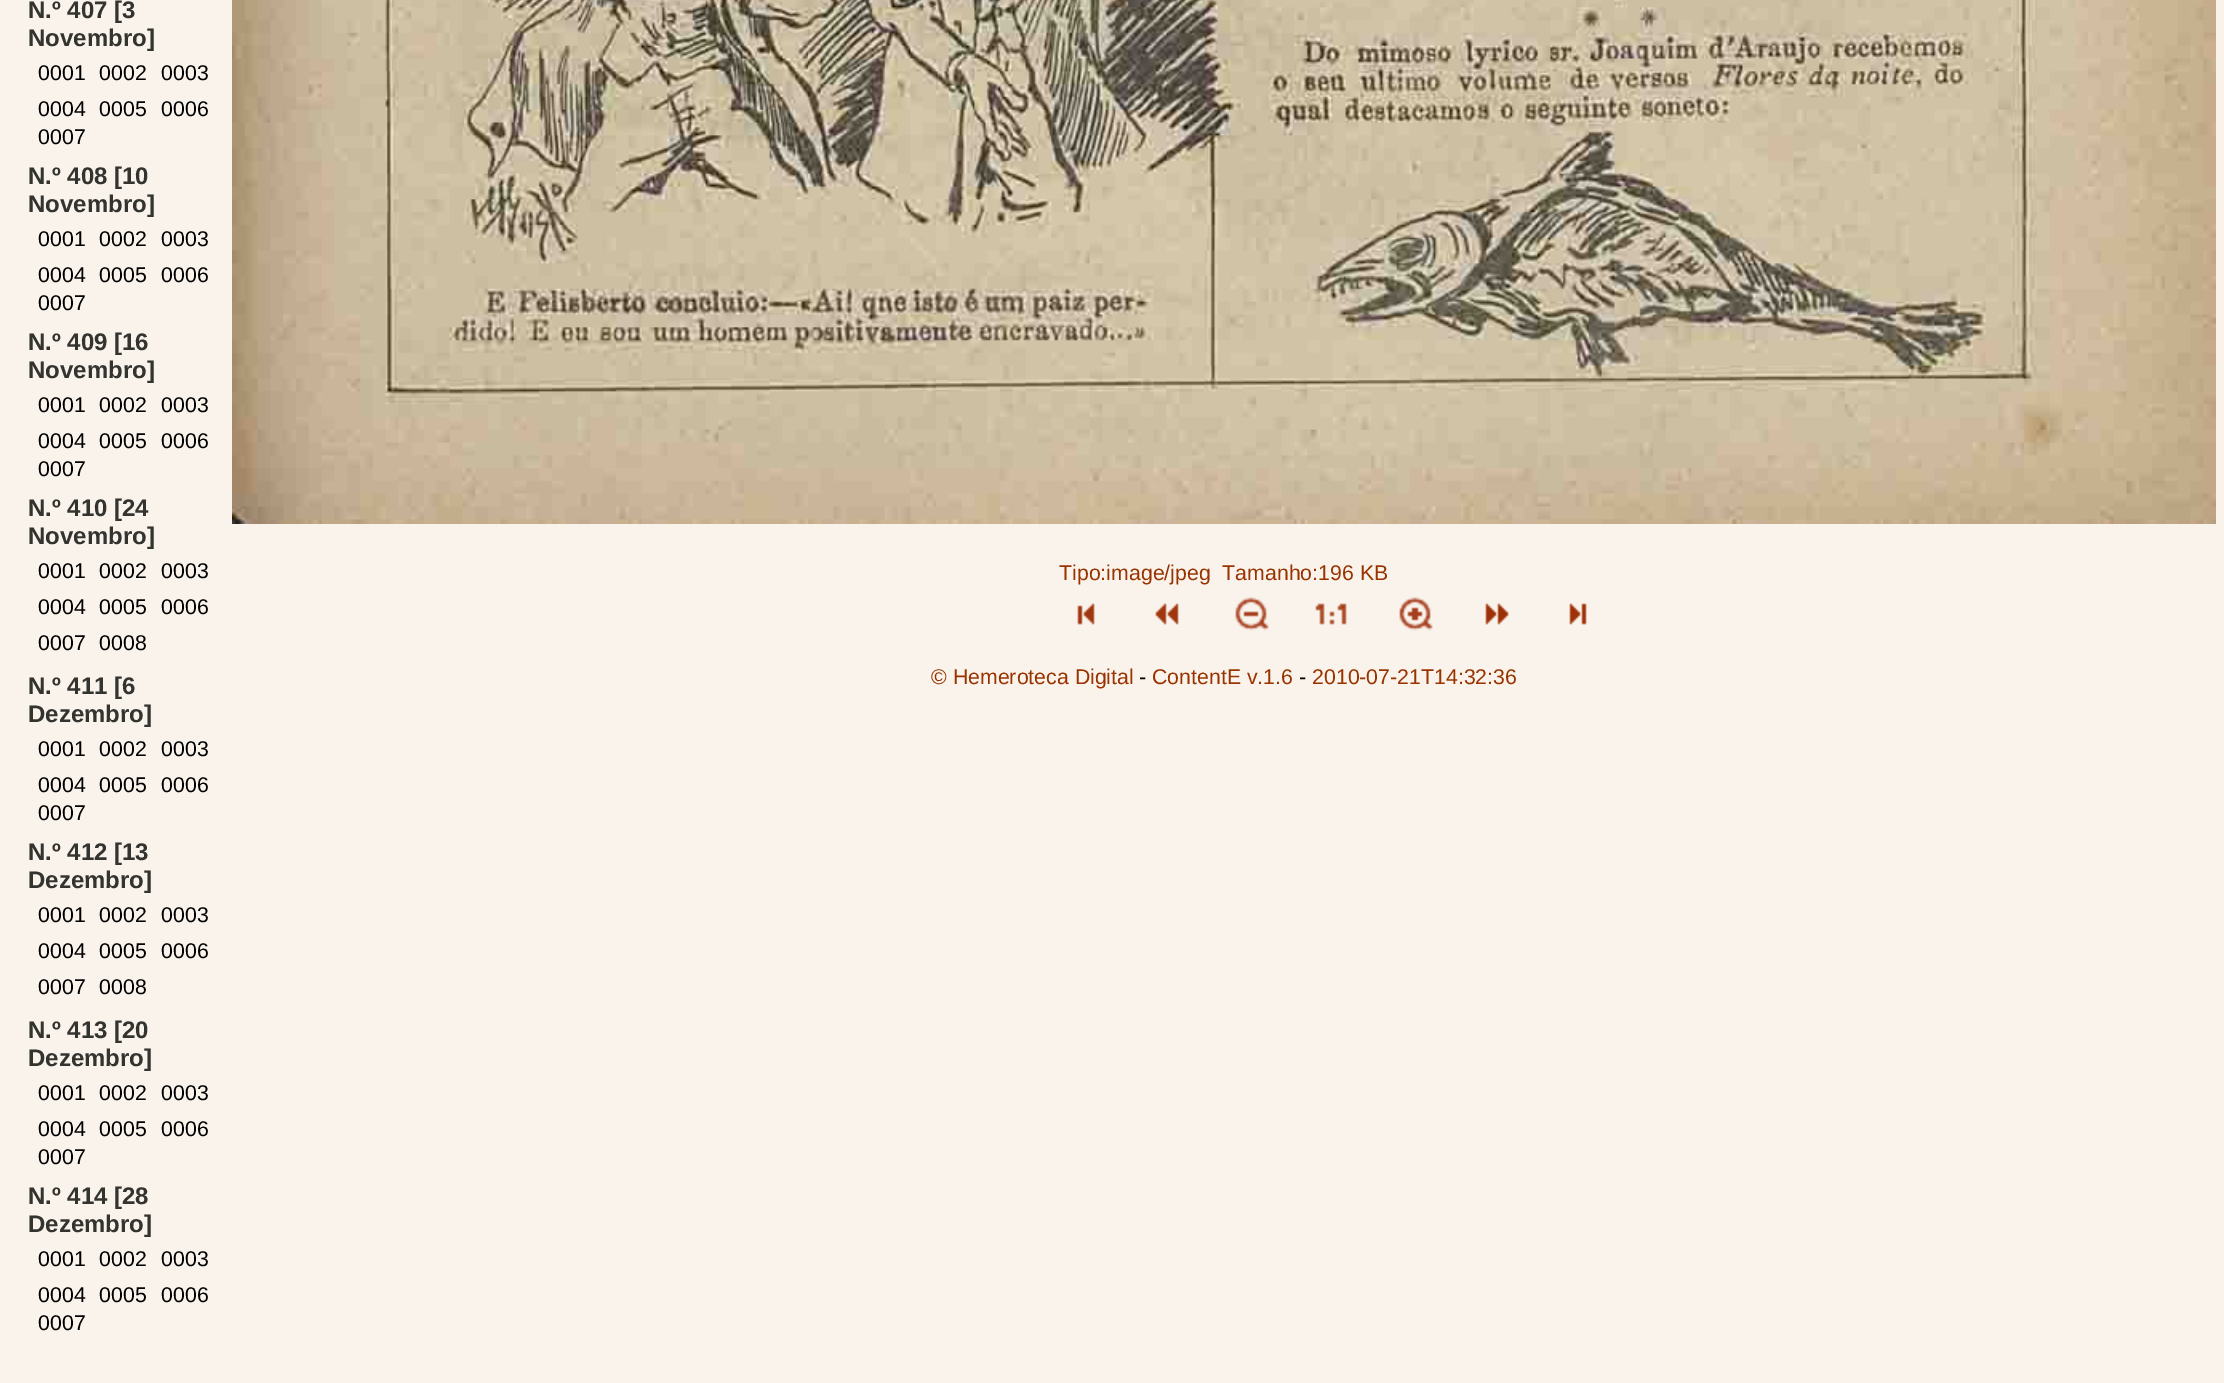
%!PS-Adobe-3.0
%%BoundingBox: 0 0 2224 1383
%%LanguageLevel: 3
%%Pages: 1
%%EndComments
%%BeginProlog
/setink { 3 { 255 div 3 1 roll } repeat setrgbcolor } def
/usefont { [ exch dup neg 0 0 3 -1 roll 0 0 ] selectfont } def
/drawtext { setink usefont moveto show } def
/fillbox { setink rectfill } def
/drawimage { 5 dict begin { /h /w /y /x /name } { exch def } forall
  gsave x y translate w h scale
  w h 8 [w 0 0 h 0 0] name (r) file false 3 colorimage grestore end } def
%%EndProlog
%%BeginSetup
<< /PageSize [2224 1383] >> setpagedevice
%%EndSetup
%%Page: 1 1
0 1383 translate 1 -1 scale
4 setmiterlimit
0 0 2224 1383 250 243 235 fillbox
(N.º 407 [3) 28 18 /LiberationSans-Bold 24 51 51 48 drawtext
(Novembro]) 28 46 /LiberationSans-Bold 24 51 51 48 drawtext
(0001) 38 80 /LiberationSans-Regular 21.3 0 0 0 drawtext
(0002) 99 80 /LiberationSans-Regular 21.3 0 0 0 drawtext
(0003) 161 80 /LiberationSans-Regular 21.3 0 0 0 drawtext
(0004) 38 116 /LiberationSans-Regular 21.3 0 0 0 drawtext
(0005) 99 116 /LiberationSans-Regular 21.3 0 0 0 drawtext
(0006) 161 116 /LiberationSans-Regular 21.3 0 0 0 drawtext
(0007) 38 144 /LiberationSans-Regular 21.3 0 0 0 drawtext
(N.º 408 [10) 28 184 /LiberationSans-Bold 24 51 51 48 drawtext
(Novembro]) 28 212 /LiberationSans-Bold 24 51 51 48 drawtext
(0001) 38 246 /LiberationSans-Regular 21.3 0 0 0 drawtext
(0002) 99 246 /LiberationSans-Regular 21.3 0 0 0 drawtext
(0003) 161 246 /LiberationSans-Regular 21.3 0 0 0 drawtext
(0004) 38 282 /LiberationSans-Regular 21.3 0 0 0 drawtext
(0005) 99 282 /LiberationSans-Regular 21.3 0 0 0 drawtext
(0006) 161 282 /LiberationSans-Regular 21.3 0 0 0 drawtext
(0007) 38 310 /LiberationSans-Regular 21.3 0 0 0 drawtext
(N.º 409 [16) 28 350 /LiberationSans-Bold 24 51 51 48 drawtext
(Novembro]) 28 378 /LiberationSans-Bold 24 51 51 48 drawtext
(0001) 38 412 /LiberationSans-Regular 21.3 0 0 0 drawtext
(0002) 99 412 /LiberationSans-Regular 21.3 0 0 0 drawtext
(0003) 161 412 /LiberationSans-Regular 21.3 0 0 0 drawtext
(0004) 38 448 /LiberationSans-Regular 21.3 0 0 0 drawtext
(0005) 99 448 /LiberationSans-Regular 21.3 0 0 0 drawtext
(0006) 161 448 /LiberationSans-Regular 21.3 0 0 0 drawtext
(0007) 38 476 /LiberationSans-Regular 21.3 0 0 0 drawtext
(N.º 410 [24) 28 516 /LiberationSans-Bold 24 51 51 48 drawtext
(Novembro]) 28 544 /LiberationSans-Bold 24 51 51 48 drawtext
(0001) 38 578 /LiberationSans-Regular 21.3 0 0 0 drawtext
(0002) 99 578 /LiberationSans-Regular 21.3 0 0 0 drawtext
(0003) 161 578 /LiberationSans-Regular 21.3 0 0 0 drawtext
(0004) 38 614 /LiberationSans-Regular 21.3 0 0 0 drawtext
(0005) 99 614 /LiberationSans-Regular 21.3 0 0 0 drawtext
(0006) 161 614 /LiberationSans-Regular 21.3 0 0 0 drawtext
(0007) 38 650 /LiberationSans-Regular 21.3 0 0 0 drawtext
(0008) 99 650 /LiberationSans-Regular 21.3 0 0 0 drawtext
(N.º 411 [6) 28 694 /LiberationSans-Bold 24 51 51 48 drawtext
(Dezembro]) 28 722 /LiberationSans-Bold 24 51 51 48 drawtext
(0001) 38 756 /LiberationSans-Regular 21.3 0 0 0 drawtext
(0002) 99 756 /LiberationSans-Regular 21.3 0 0 0 drawtext
(0003) 161 756 /LiberationSans-Regular 21.3 0 0 0 drawtext
(0004) 38 792 /LiberationSans-Regular 21.3 0 0 0 drawtext
(0005) 99 792 /LiberationSans-Regular 21.3 0 0 0 drawtext
(0006) 161 792 /LiberationSans-Regular 21.3 0 0 0 drawtext
(0007) 38 820 /LiberationSans-Regular 21.3 0 0 0 drawtext
(N.º 412 [13) 28 860 /LiberationSans-Bold 24 51 51 48 drawtext
(Dezembro]) 28 888 /LiberationSans-Bold 24 51 51 48 drawtext
(0001) 38 922 /LiberationSans-Regular 21.3 0 0 0 drawtext
(0002) 99 922 /LiberationSans-Regular 21.3 0 0 0 drawtext
(0003) 161 922 /LiberationSans-Regular 21.3 0 0 0 drawtext
(0004) 38 958 /LiberationSans-Regular 21.3 0 0 0 drawtext
(0005) 99 958 /LiberationSans-Regular 21.3 0 0 0 drawtext
(0006) 161 958 /LiberationSans-Regular 21.3 0 0 0 drawtext
(0007) 38 994 /LiberationSans-Regular 21.3 0 0 0 drawtext
(0008) 99 994 /LiberationSans-Regular 21.3 0 0 0 drawtext
(N.º 413 [20) 28 1038 /LiberationSans-Bold 24 51 51 48 drawtext
(Dezembro]) 28 1066 /LiberationSans-Bold 24 51 51 48 drawtext
(0001) 38 1100 /LiberationSans-Regular 21.3 0 0 0 drawtext
(0002) 99 1100 /LiberationSans-Regular 21.3 0 0 0 drawtext
(0003) 161 1100 /LiberationSans-Regular 21.3 0 0 0 drawtext
(0004) 38 1136 /LiberationSans-Regular 21.3 0 0 0 drawtext
(0005) 99 1136 /LiberationSans-Regular 21.3 0 0 0 drawtext
(0006) 161 1136 /LiberationSans-Regular 21.3 0 0 0 drawtext
(0007) 38 1164 /LiberationSans-Regular 21.3 0 0 0 drawtext
(N.º 414 [28) 28 1204 /LiberationSans-Bold 24 51 51 48 drawtext
(Dezembro]) 28 1232 /LiberationSans-Bold 24 51 51 48 drawtext
(0001) 38 1266 /LiberationSans-Regular 21.3 0 0 0 drawtext
(0002) 99 1266 /LiberationSans-Regular 21.3 0 0 0 drawtext
(0003) 161 1266 /LiberationSans-Regular 21.3 0 0 0 drawtext
(0004) 38 1302 /LiberationSans-Regular 21.3 0 0 0 drawtext
(0005) 99 1302 /LiberationSans-Regular 21.3 0 0 0 drawtext
(0006) 161 1302 /LiberationSans-Regular 21.3 0 0 0 drawtext
(0007) 38 1330 /LiberationSans-Regular 21.3 0 0 0 drawtext
(assets/img1.rgb) 232 0 1984 524 drawimage
(Tipo:image/jpeg  Tamanho:196 KB) 1059 580 /LiberationSans-Regular 21.3 153 51 0 drawtext
(assets/img2.rgb) 1077 603 18 22 drawimage
(assets/img3.rgb) 1155 603 24 22 drawimage
(assets/img4.rgb) 1235 597 34 34 drawimage
(assets/img5.rgb) 1315 603 32 22 drawimage
(assets/img6.rgb) 1399 597 34 34 drawimage
(assets/img7.rgb) 1485 603 24 22 drawimage
(assets/img8.rgb) 1569 603 18 22 drawimage
(© Hemeroteca Digital) 931 684 /LiberationSans-Regular 21.3 153 51 0 drawtext
(-) 1139 684 /LiberationSans-Regular 21.3 0 0 0 drawtext
(ContentE v.1.6) 1152 684 /LiberationSans-Regular 21.3 153 51 0 drawtext
(-) 1299 684 /LiberationSans-Regular 21.3 0 0 0 drawtext
(2010-07-21T14:32:36) 1312 684 /LiberationSans-Regular 21.3 153 51 0 drawtext
showpage
%%EOF
